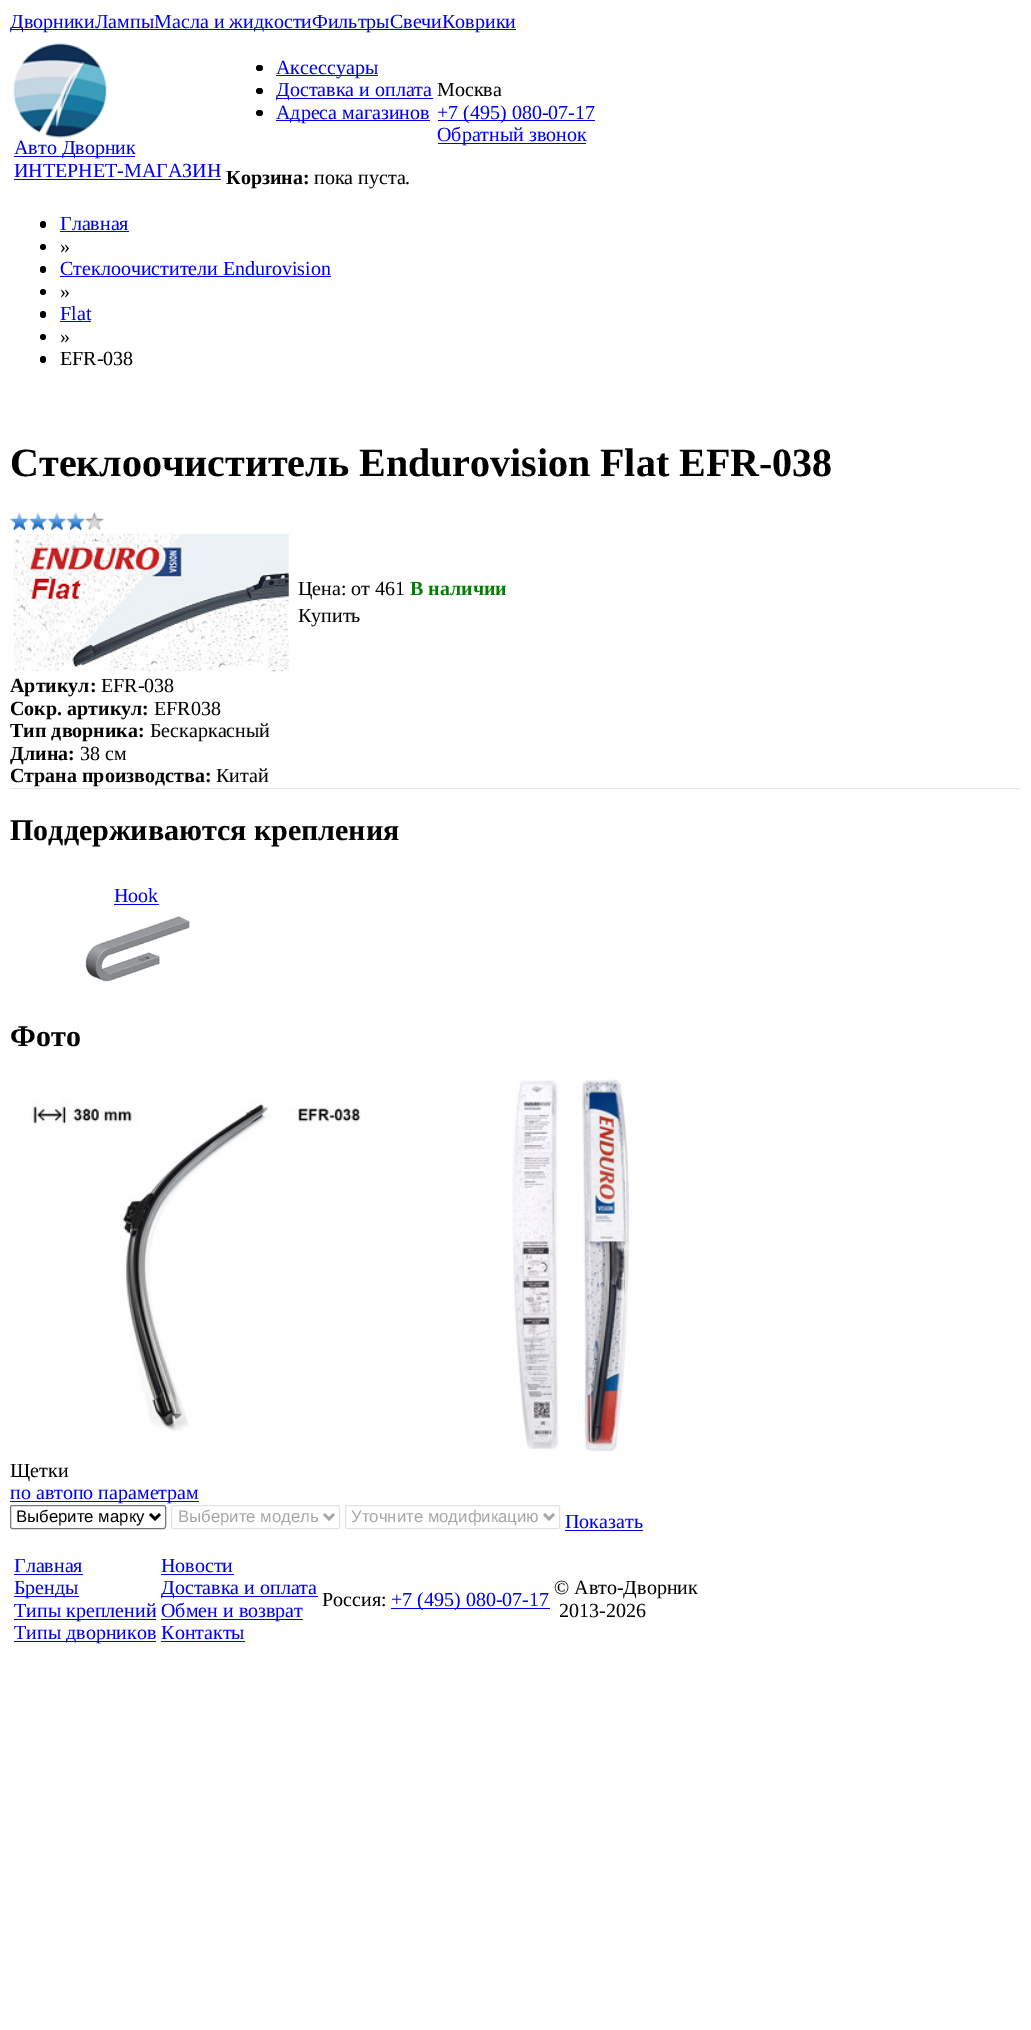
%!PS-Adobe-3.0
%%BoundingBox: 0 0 1031 2030
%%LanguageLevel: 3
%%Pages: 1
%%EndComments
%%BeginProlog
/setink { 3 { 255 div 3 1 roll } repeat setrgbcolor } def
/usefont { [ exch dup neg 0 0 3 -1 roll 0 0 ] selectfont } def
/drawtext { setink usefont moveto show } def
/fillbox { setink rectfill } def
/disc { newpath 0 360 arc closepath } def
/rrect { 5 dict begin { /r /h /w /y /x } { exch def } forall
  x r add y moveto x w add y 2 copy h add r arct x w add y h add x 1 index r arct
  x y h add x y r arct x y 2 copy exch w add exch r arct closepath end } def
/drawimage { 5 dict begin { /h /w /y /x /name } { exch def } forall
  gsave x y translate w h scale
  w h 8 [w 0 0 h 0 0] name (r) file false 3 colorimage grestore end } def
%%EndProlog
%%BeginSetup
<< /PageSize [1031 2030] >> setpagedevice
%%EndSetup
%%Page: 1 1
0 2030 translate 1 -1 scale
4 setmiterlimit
0 0 1031 2030 255 255 255 fillbox
10 29 506 1 0 0 238 fillbox
(ДворникиЛампыМасла и жидкостиФильтрыСвечиКоврики) 10 28 /LiberationSerif-Regular 20 0 0 238 drawtext
0 0 0 setink
256 65 7 6 3 rrect fill
276 75 102 1 0 0 238 fillbox
(Аксессуары) 276 74 /LiberationSerif-Regular 20 0 0 238 drawtext
0 0 0 setink
256 88 7 6 3 rrect fill
276 98 157 1 0 0 238 fillbox
(Доставка и оплата) 276 96 /LiberationSerif-Regular 20 0 0 238 drawtext
0 0 0 setink
256 110 7 6 3 rrect fill
276 120 154 1 0 0 238 fillbox
(Адреса магазинов) 276 119 /LiberationSerif-Regular 20 0 0 238 drawtext
(Корзина:) 226 184 /LiberationSerif-Bold 20 0 0 0 drawtext
(пока пуста.) 314 184 /LiberationSerif-Regular 20 0 0 0 drawtext
(Москва) 437 96 /LiberationSerif-Regular 20 0 0 0 drawtext
438 120 157 1 0 0 238 fillbox
(+7 \(495\) 080-07-17) 437 119 /LiberationSerif-Regular 20 0 0 238 drawtext
438 143 148 1 0 0 238 fillbox
(Обратный звонок) 437 141 /LiberationSerif-Regular 20 0 0 238 drawtext
(assets/img1.rgb) 13 43 94 95 drawimage
14 156 121 1 0 0 238 fillbox
(Авто Дворник) 14 154 /LiberationSerif-Regular 20 0 0 238 drawtext
(ИНТЕРНЕТ-МАГАЗИН) 14 177 /LiberationSerif-Regular 20 0 0 238 drawtext
14 179 207 1 0 0 238 fillbox
0 0 0 setink
40 221 6 7 3 rrect fill
(Главная) 60 230 /LiberationSerif-Regular 20 0 0 238 drawtext
60 231 69 1 0 0 238 fillbox
0 0 0 setink
43 247 3 disc fill
(») 60 253 /LiberationSerif-Regular 20 0 0 0 drawtext
40 266 6 7 3 rrect fill
(Стеклоочистители Endurovision) 60 275 /LiberationSerif-Regular 20 0 0 238 drawtext
60 276 271 1 0 0 238 fillbox
0 0 0 setink
43 292 3 disc fill
(») 60 298 /LiberationSerif-Regular 20 0 0 0 drawtext
40 311 6 7 3 rrect fill
(Flat) 60 320 /LiberationSerif-Regular 20 0 0 238 drawtext
60 321 31 1 0 0 238 fillbox
0 0 0 setink
43 337 3 disc fill
(») 60 343 /LiberationSerif-Regular 20 0 0 0 drawtext
40 356 6 7 3 rrect fill
(EFR-038) 60 365 /LiberationSerif-Regular 20 0 0 0 drawtext
(Стеклоочиститель Endurovision Flat EFR-038) 10 476 /LiberationSerif-Bold 40 0 0 0 drawtext
(assets/img2.rgb) 10 512 19 18 drawimage
(assets/img3.rgb) 29 512 19 18 drawimage
(assets/img4.rgb) 47 512 20 18 drawimage
(assets/img5.rgb) 66 512 19 18 drawimage
(assets/img6.rgb) 85 512 19 18 drawimage
(assets/img7.rgb) 13 533 276 139 drawimage
(Цена: от 461) 298 595 /LiberationSerif-Regular 20 0 0 0 drawtext
(В наличии) 410 595 /LiberationSerif-Bold 20 0 128 0 drawtext
(Купить) 298 622 /LiberationSerif-Regular 20 0 0 0 drawtext
10 788 1011 1 230 229 226 fillbox
(Артикул:) 10 692 /LiberationSerif-Bold 20 0 0 0 drawtext
(EFR-038) 101 692 /LiberationSerif-Regular 20 0 0 0 drawtext
(Сокр. артикул:) 10 715 /LiberationSerif-Bold 20 0 0 0 drawtext
(EFR038) 154 715 /LiberationSerif-Regular 20 0 0 0 drawtext
(Тип дворника:) 10 737 /LiberationSerif-Bold 20 0 0 0 drawtext
(Бескаркасный) 150 737 /LiberationSerif-Regular 20 0 0 0 drawtext
(Длина:) 10 760 /LiberationSerif-Bold 20 0 0 0 drawtext
(38 см) 80 760 /LiberationSerif-Regular 20 0 0 0 drawtext
(Страна производства:) 10 782 /LiberationSerif-Bold 20 0 0 0 drawtext
(Китай) 216 782 /LiberationSerif-Regular 20 0 0 0 drawtext
(Поддерживаются крепления) 10 840 /LiberationSerif-Bold 30 0 0 0 drawtext
(Hook) 114 902 /LiberationSerif-Regular 20 0 0 238 drawtext
114 904 45 1 0 0 238 fillbox
(assets/img8.rgb) 85 916 105 66 drawimage
(Фото) 10 1046 /LiberationSerif-Bold 30 0 0 0 drawtext
(assets/img9.rgb) 31 1100 330 332 drawimage
(assets/img10.rgb) 512 1079 119 373 drawimage
(Щетки) 10 1477 /LiberationSerif-Regular 20 0 0 0 drawtext
10 1501 189 1 0 0 238 fillbox
(по автопо параметрам) 10 1499 /LiberationSerif-Regular 20 0 0 238 drawtext
118 118 118 setink
10.5 1505.5 155 23 2 rrect stroke
0 0 0 setink
2.5 setlinewidth
150 1514 moveto 155 1519 lineto 160 1514 lineto stroke
(Выберите марку) 16 1522 /LiberationSans-Regular 16.75 0 0 0 drawtext
226 226 226 setink
1 setlinewidth
171.5 1505.5 168 23 2 rrect stroke
166 166 166 setink
2.5 setlinewidth
324 1514 moveto 329 1519 lineto 334 1514 lineto stroke
(Выберите модель) 178 1522 /LiberationSans-Regular 16.75 166 166 166 drawtext
226 226 226 setink
1 setlinewidth
345.5 1505.5 214 23 2 rrect stroke
166 166 166 setink
2.5 setlinewidth
544 1514 moveto 549 1519 lineto 554 1514 lineto stroke
(Уточните модификацию) 351 1522 /LiberationSans-Regular 16.75 166 166 166 drawtext
(Показать) 565 1528 /LiberationSerif-Regular 20 0 0 238 drawtext
565 1530 78 1 0 0 238 fillbox
(Главная) 14 1572 /LiberationSerif-Regular 20 0 0 238 drawtext
14 1574 69 1 0 0 238 fillbox
14 1596 65 1 0 0 238 fillbox
(Бренды) 14 1594 /LiberationSerif-Regular 20 0 0 238 drawtext
14 1619 142 1 0 0 238 fillbox
(Типы креплений) 14 1617 /LiberationSerif-Regular 20 0 0 238 drawtext
14 1641 142 1 0 0 238 fillbox
(Типы дворников Контакты) 14 1639 /LiberationSerif-Regular 20 0 0 238 drawtext
(Новости) 161 1572 /LiberationSerif-Regular 20 0 0 238 drawtext
161 1574 73 1 0 0 238 fillbox
161 1596 157 1 0 0 238 fillbox
(Доставка и оплата) 161 1594 /LiberationSerif-Regular 20 0 0 238 drawtext
161 1619 142 1 0 0 238 fillbox
(Обмен и возврат) 161 1617 /LiberationSerif-Regular 20 0 0 238 drawtext
161 1641 84 1 0 0 238 fillbox
(Россия:) 322 1606 /LiberationSerif-Regular 20 0 0 0 drawtext
391 1608 159 1 0 0 238 fillbox
(+7 \(495\) 080-07-17) 391 1606 /LiberationSerif-Regular 20 0 0 238 drawtext
(© Авто-Дворник) 554 1594 /LiberationSerif-Regular 20 0 0 0 drawtext
(2013-2026) 559 1617 /LiberationSerif-Regular 20 0 0 0 drawtext
showpage
%%EOF
